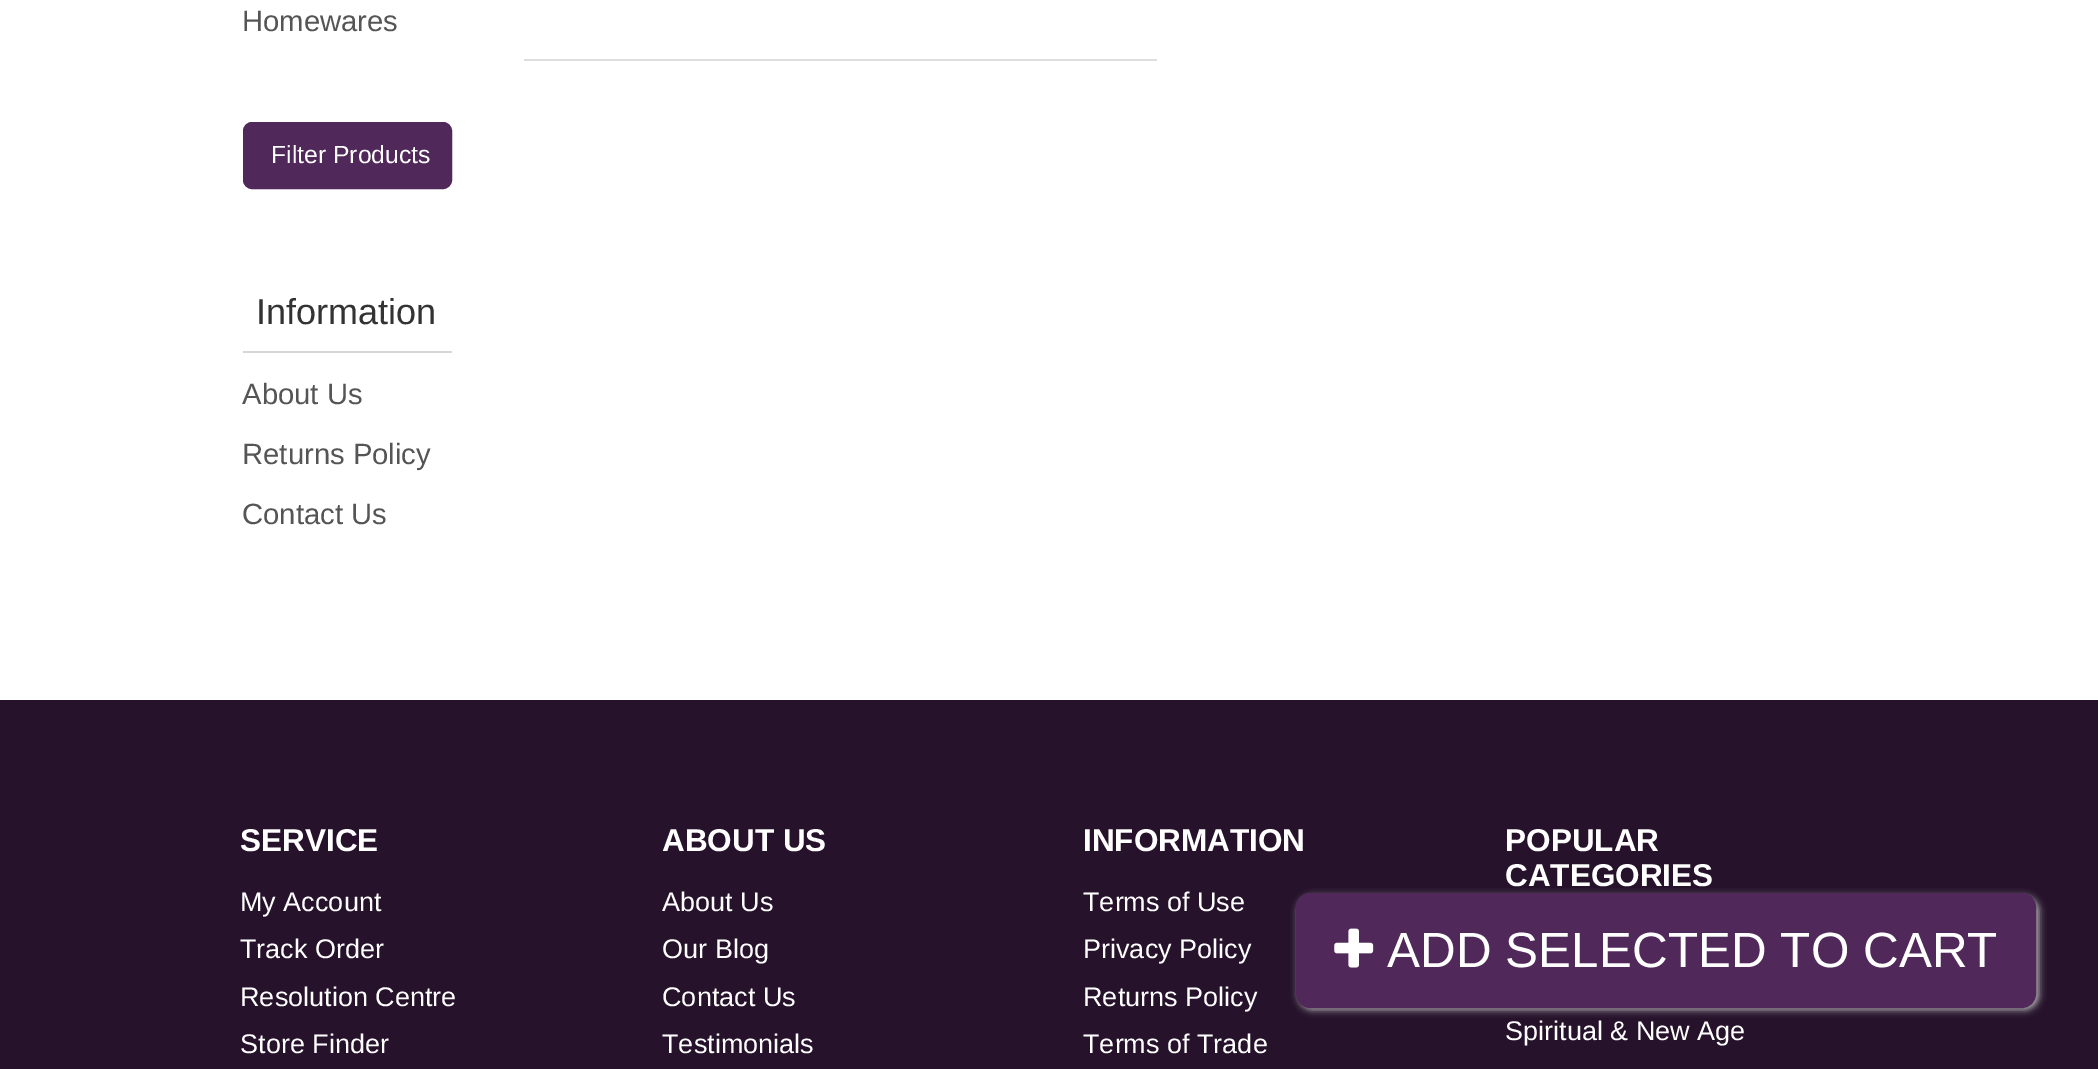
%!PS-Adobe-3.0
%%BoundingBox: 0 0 2098 1069
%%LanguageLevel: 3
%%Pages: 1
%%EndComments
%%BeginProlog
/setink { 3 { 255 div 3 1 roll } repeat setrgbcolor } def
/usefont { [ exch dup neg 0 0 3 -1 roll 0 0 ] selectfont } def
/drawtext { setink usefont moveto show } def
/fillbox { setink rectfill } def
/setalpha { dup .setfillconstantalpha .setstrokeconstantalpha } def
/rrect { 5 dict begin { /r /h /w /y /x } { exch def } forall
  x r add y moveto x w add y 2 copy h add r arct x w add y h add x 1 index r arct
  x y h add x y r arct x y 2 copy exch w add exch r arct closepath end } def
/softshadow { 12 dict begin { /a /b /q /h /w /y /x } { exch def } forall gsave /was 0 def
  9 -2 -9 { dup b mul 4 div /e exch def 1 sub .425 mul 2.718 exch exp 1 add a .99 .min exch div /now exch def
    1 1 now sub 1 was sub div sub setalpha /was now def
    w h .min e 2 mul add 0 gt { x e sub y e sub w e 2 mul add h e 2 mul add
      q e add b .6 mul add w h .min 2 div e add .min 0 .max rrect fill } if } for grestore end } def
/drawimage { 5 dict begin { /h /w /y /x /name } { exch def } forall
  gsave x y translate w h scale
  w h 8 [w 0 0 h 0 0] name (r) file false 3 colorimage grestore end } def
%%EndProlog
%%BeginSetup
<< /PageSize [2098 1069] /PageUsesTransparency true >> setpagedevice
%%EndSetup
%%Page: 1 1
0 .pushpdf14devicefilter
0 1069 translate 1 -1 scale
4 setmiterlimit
0 0 2098 1069 255 255 255 fillbox
(Homewares) 242 31 /LiberationSans-Regular 29.25 85 85 85 drawtext
80 40 89 setink
244 123 207 65 8 rrect gsave fill grestore
2 setlinewidth
stroke
(Filter Products) 271 163 /LiberationSans-Regular 24.75 255 255 255 drawtext
243 351 209 2 214 214 214 fillbox
(Information) 256 324 /LiberationSans-Regular 36 51 51 51 drawtext
(About Us) 242 404 /LiberationSans-Regular 29.25 85 85 85 drawtext
(Returns Policy) 242 464 /LiberationSans-Regular 29.25 85 85 85 drawtext
(Contact Us) 242 524 /LiberationSans-Regular 29.25 85 85 85 drawtext
522 59 635 2 222 222 222 fillbox
522 59 2 2 255 255 255 fillbox
0 700 2098 369 38 18 43 fillbox
177 177 177 setink
1298 896 741 114 14 3.5 1 softshadow
80 40 89 setink
1297 894 738 113 13 rrect gsave fill grestore
stroke
(assets/img1.rgb) 1334 928 40 40 drawimage
(ADD SELECTED TO CART) 1387 967 /LiberationSans-Regular 49.5 255 255 255 drawtext
(SERVICE) 240 851 /LiberationSans-Bold 31.5 255 255 255 drawtext
(My Account) 240 911 /LiberationSans-Regular 27 255 255 255 drawtext
(Track Order) 240 958 /LiberationSans-Regular 27 255 255 255 drawtext
(Resolution Centre) 240 1006 /LiberationSans-Regular 27 255 255 255 drawtext
(Store Finder) 240 1053 /LiberationSans-Regular 27 255 255 255 drawtext
(ABOUT US) 662 851 /LiberationSans-Bold 31.5 255 255 255 drawtext
(About Us) 662 911 /LiberationSans-Regular 27 255 255 255 drawtext
(Our Blog) 662 958 /LiberationSans-Regular 27 255 255 255 drawtext
(Contact Us) 662 1006 /LiberationSans-Regular 27 255 255 255 drawtext
(Testimonials) 662 1053 /LiberationSans-Regular 27 255 255 255 drawtext
(INFORMATION) 1083 851 /LiberationSans-Bold 31.5 255 255 255 drawtext
(Terms of Use) 1083 911 /LiberationSans-Regular 27 255 255 255 drawtext
(Privacy Policy) 1083 958 /LiberationSans-Regular 27 255 255 255 drawtext
(Returns Policy) 1083 1006 /LiberationSans-Regular 27 255 255 255 drawtext
(Terms of Trade) 1083 1053 /LiberationSans-Regular 27 255 255 255 drawtext
(POPULAR) 1505 851 /LiberationSans-Bold 31.5 255 255 255 drawtext
(CATEGORIES) 1505 886 /LiberationSans-Bold 31.5 255 255 255 drawtext
(Spiritual & New Age) 1505 1040 /LiberationSans-Regular 27 255 255 255 drawtext
.poppdf14devicefilter showpage
%%EOF
